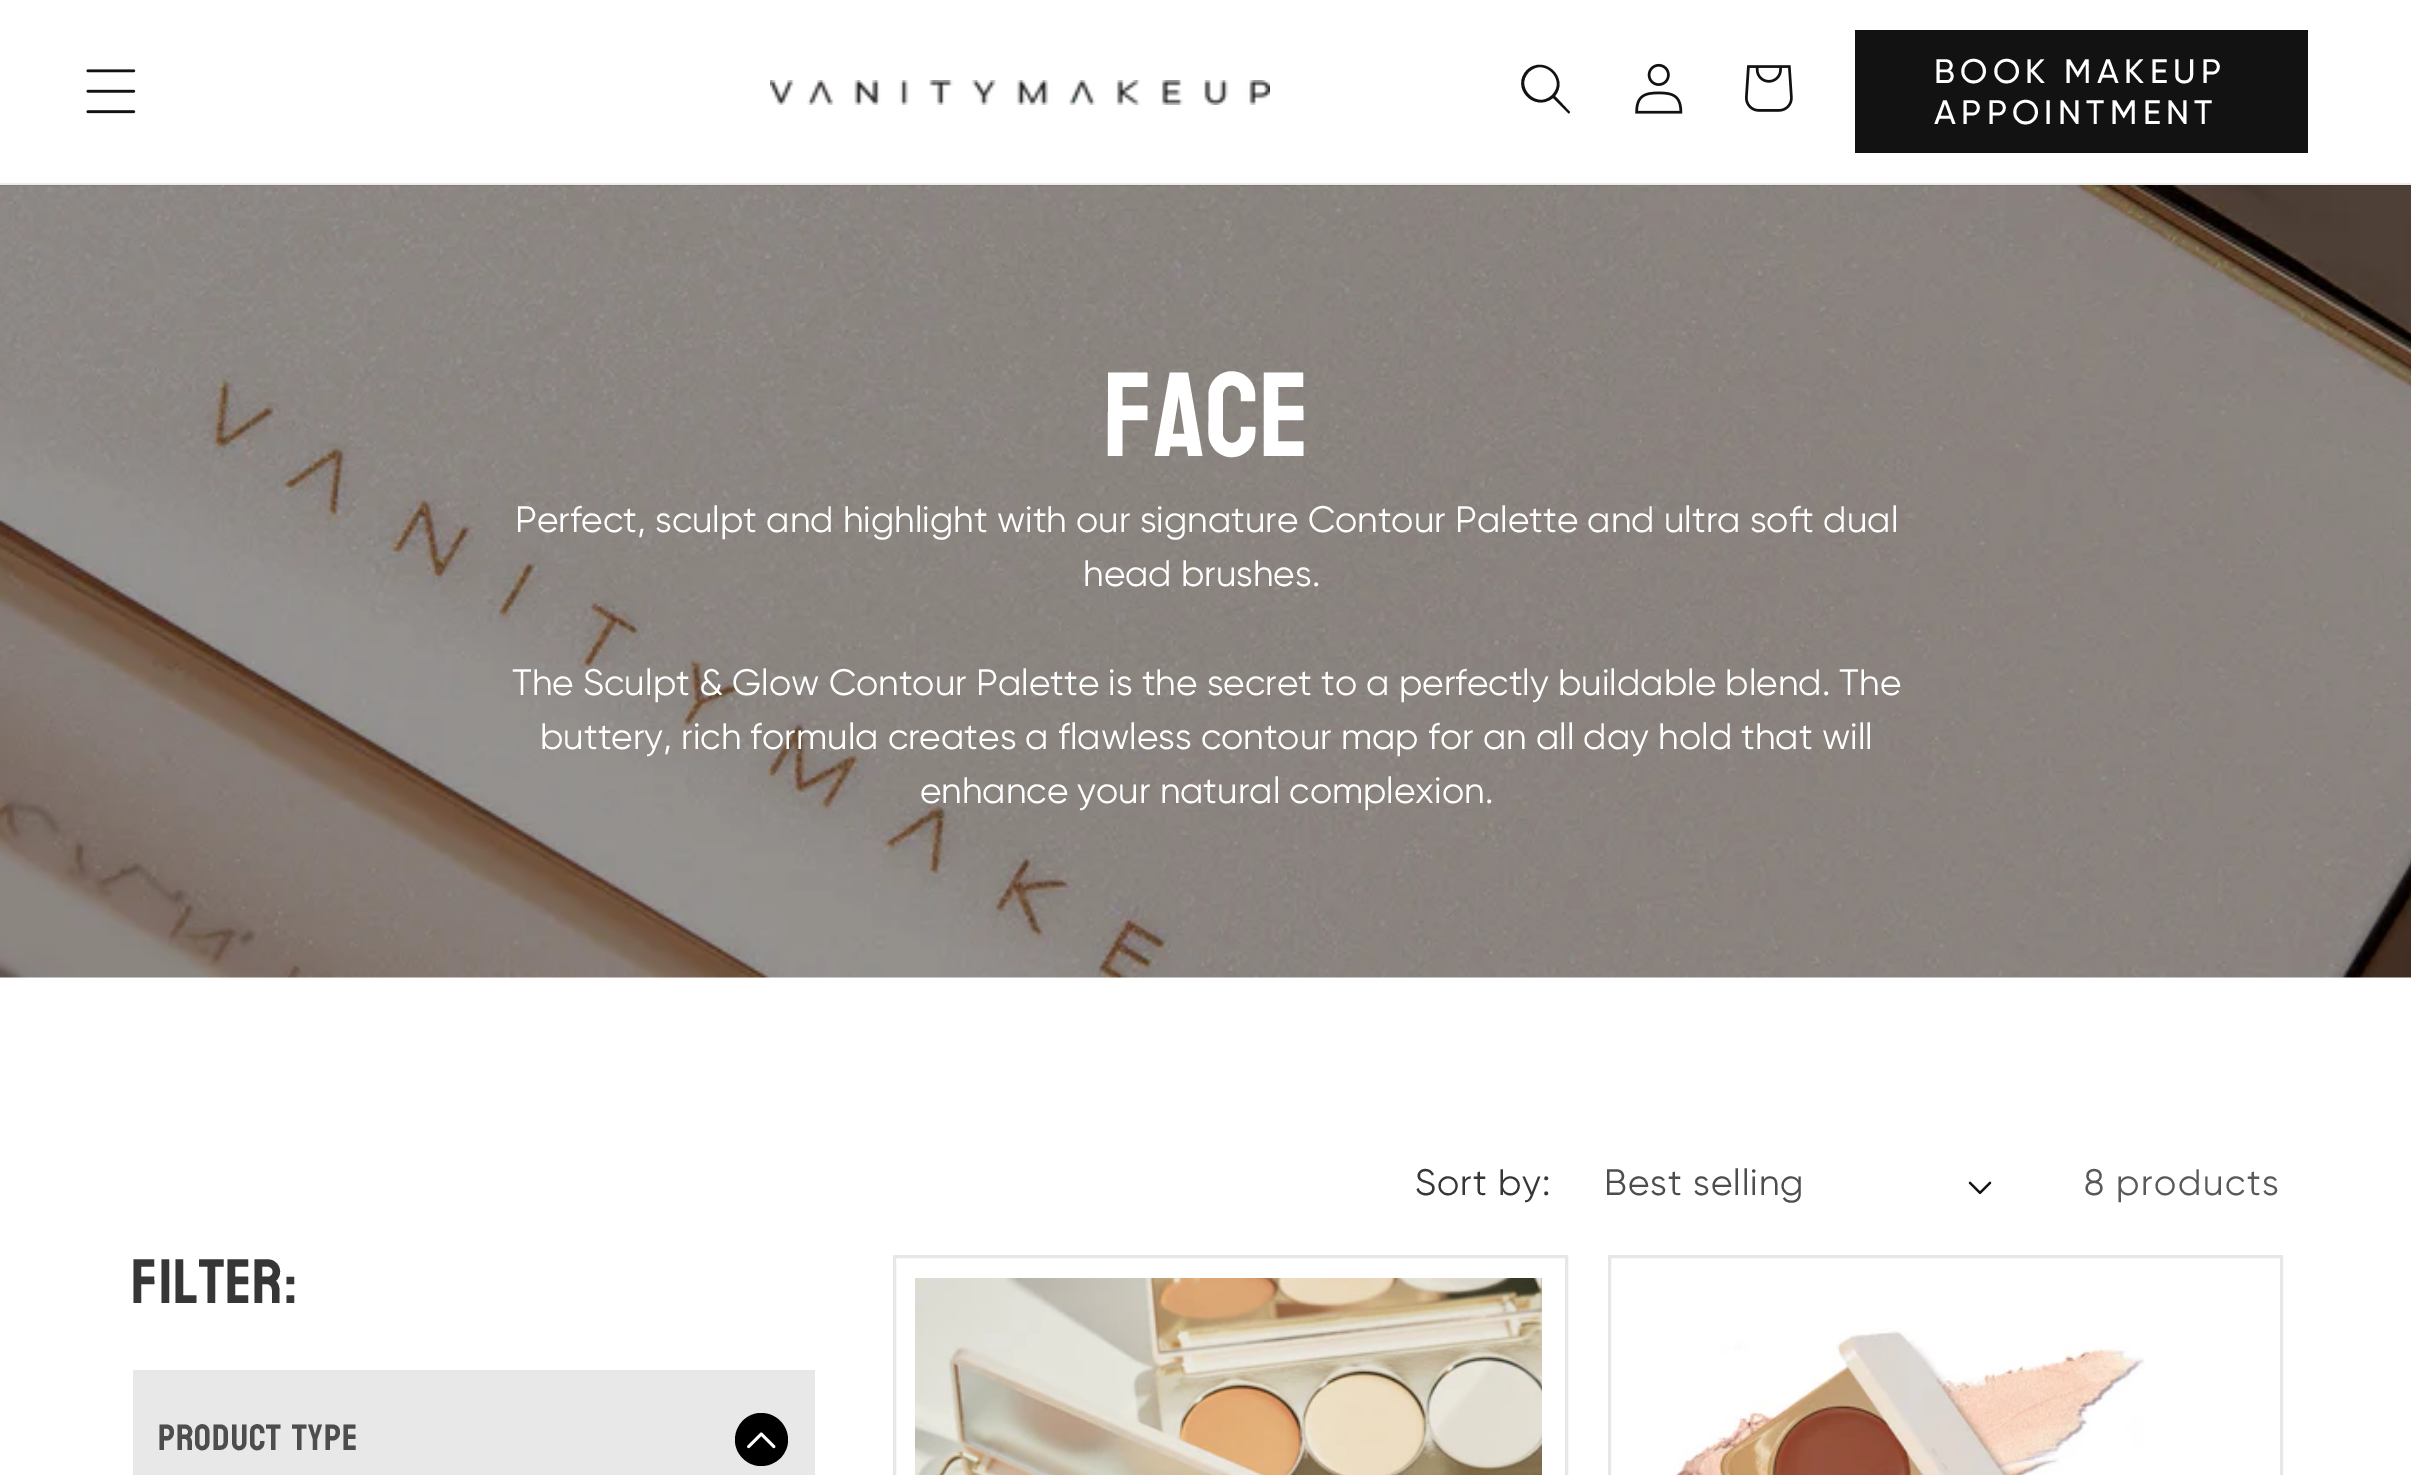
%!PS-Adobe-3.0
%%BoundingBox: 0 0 2411 1475
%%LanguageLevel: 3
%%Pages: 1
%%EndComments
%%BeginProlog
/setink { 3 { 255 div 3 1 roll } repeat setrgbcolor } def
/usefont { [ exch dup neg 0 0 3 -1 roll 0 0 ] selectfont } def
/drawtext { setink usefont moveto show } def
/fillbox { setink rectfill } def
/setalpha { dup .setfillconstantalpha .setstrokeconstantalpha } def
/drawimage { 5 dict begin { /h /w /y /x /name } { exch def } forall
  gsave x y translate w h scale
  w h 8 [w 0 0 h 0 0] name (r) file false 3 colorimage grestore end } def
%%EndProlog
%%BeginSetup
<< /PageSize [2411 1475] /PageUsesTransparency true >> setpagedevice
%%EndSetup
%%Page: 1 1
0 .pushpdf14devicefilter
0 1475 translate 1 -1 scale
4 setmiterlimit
0 0 2411 1475 255 255 255 fillbox
(assets/img5.rgb) 0 185 2411 793 drawimage
0.08 setalpha
0 183 2411 3 18 18 18 fillbox
1 setalpha
(assets/img1.rgb) 86 69 50 45 drawimage
(assets/img2.rgb) 770 80 500 25 drawimage
1552 95 moveto 1537 110 1514 87 1529 72 curveto 1544 57 1567 80 1552 95 curveto 1553 98 moveto 1534 113 1510 87 1527 70 curveto 1544 54 1570 78 1555 96 curveto 1570 112 lineto 1570 113 1568 114 1568 113 curveto closepath eofill
(assets/img3.rgb) 1635 63 48 51 drawimage
(assets/img4.rgb) 1745 65 48 47 drawimage
1855 30 453 123 18 18 18 fillbox
/Gilroy-Medium 34.1 usefont
255 255 255 setink
1934 83 moveto 5.25 0 (BOOK MAKEUP) ashow
1934 124 moveto 5.25 0 (APPOINTMENT) ashow
(FACE) 1103 456 /Koulen-Regular 120 255 255 255 drawtext
(Perfect, sculpt and highlight with our signature Contour Palette and ultra soft dual) 515 532 /Gilroy-Regular 36.75 255 255 255 drawtext
(head brushes.) 1083 586 /Gilroy-Regular 36.75 255 255 255 drawtext
(The Sculpt & Glow Contour Palette is the secret to a perfectly buildable blend. The) 512 695 /Gilroy-Regular 36.75 255 255 255 drawtext
(buttery, rich formula creates a flawless contour map for an all day hold that will) 540 749 /Gilroy-Regular 36.75 255 255 255 drawtext
(enhance your natural complexion.) 920 803 /Gilroy-Regular 36.75 255 255 255 drawtext
54 54 54 setink
1415 1195 moveto 1 0 (Sort by:) ashow
77 77 77 setink
1604 1195 moveto 1 0 (Best selling) ashow
(assets/img6.rgb) 1968 1181 24 14 drawimage
89 89 89 setink
2084 1195 moveto 1.5 0 (8 products) ashow
/Koulen-Regular 63 usefont
54 54 54 setink
131 1303 moveto 1 0 (Filter:) ashow
133 1370 682 3 231 231 231 fillbox
133 1373 682 102 232 232 232 fillbox
/Koulen-Regular 36.75 usefont
77 77 77 setink
158 1450 moveto 1 0 (PRODUCT TYPE) ashow
0 0 0 setink
761 1466 moveto 747 1466 735 1454 735 1440 curveto 735 1425 747 1413 761 1413 curveto 776 1413 788 1425 788 1440 curveto 788 1454 776 1466 761 1466 curveto closepath fill
(assets/img7.rgb) 747 1432 29 17 drawimage
231 231 231 setink
3 setlinewidth
894.5 1256.5 672 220 rectstroke
(assets/img8.rgb) 915 1278 627 197 drawimage
1609.5 1256.5 672 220 rectstroke
(assets/img9.rgb) 1674 1327 471 148 drawimage
.poppdf14devicefilter showpage
%%EOF
